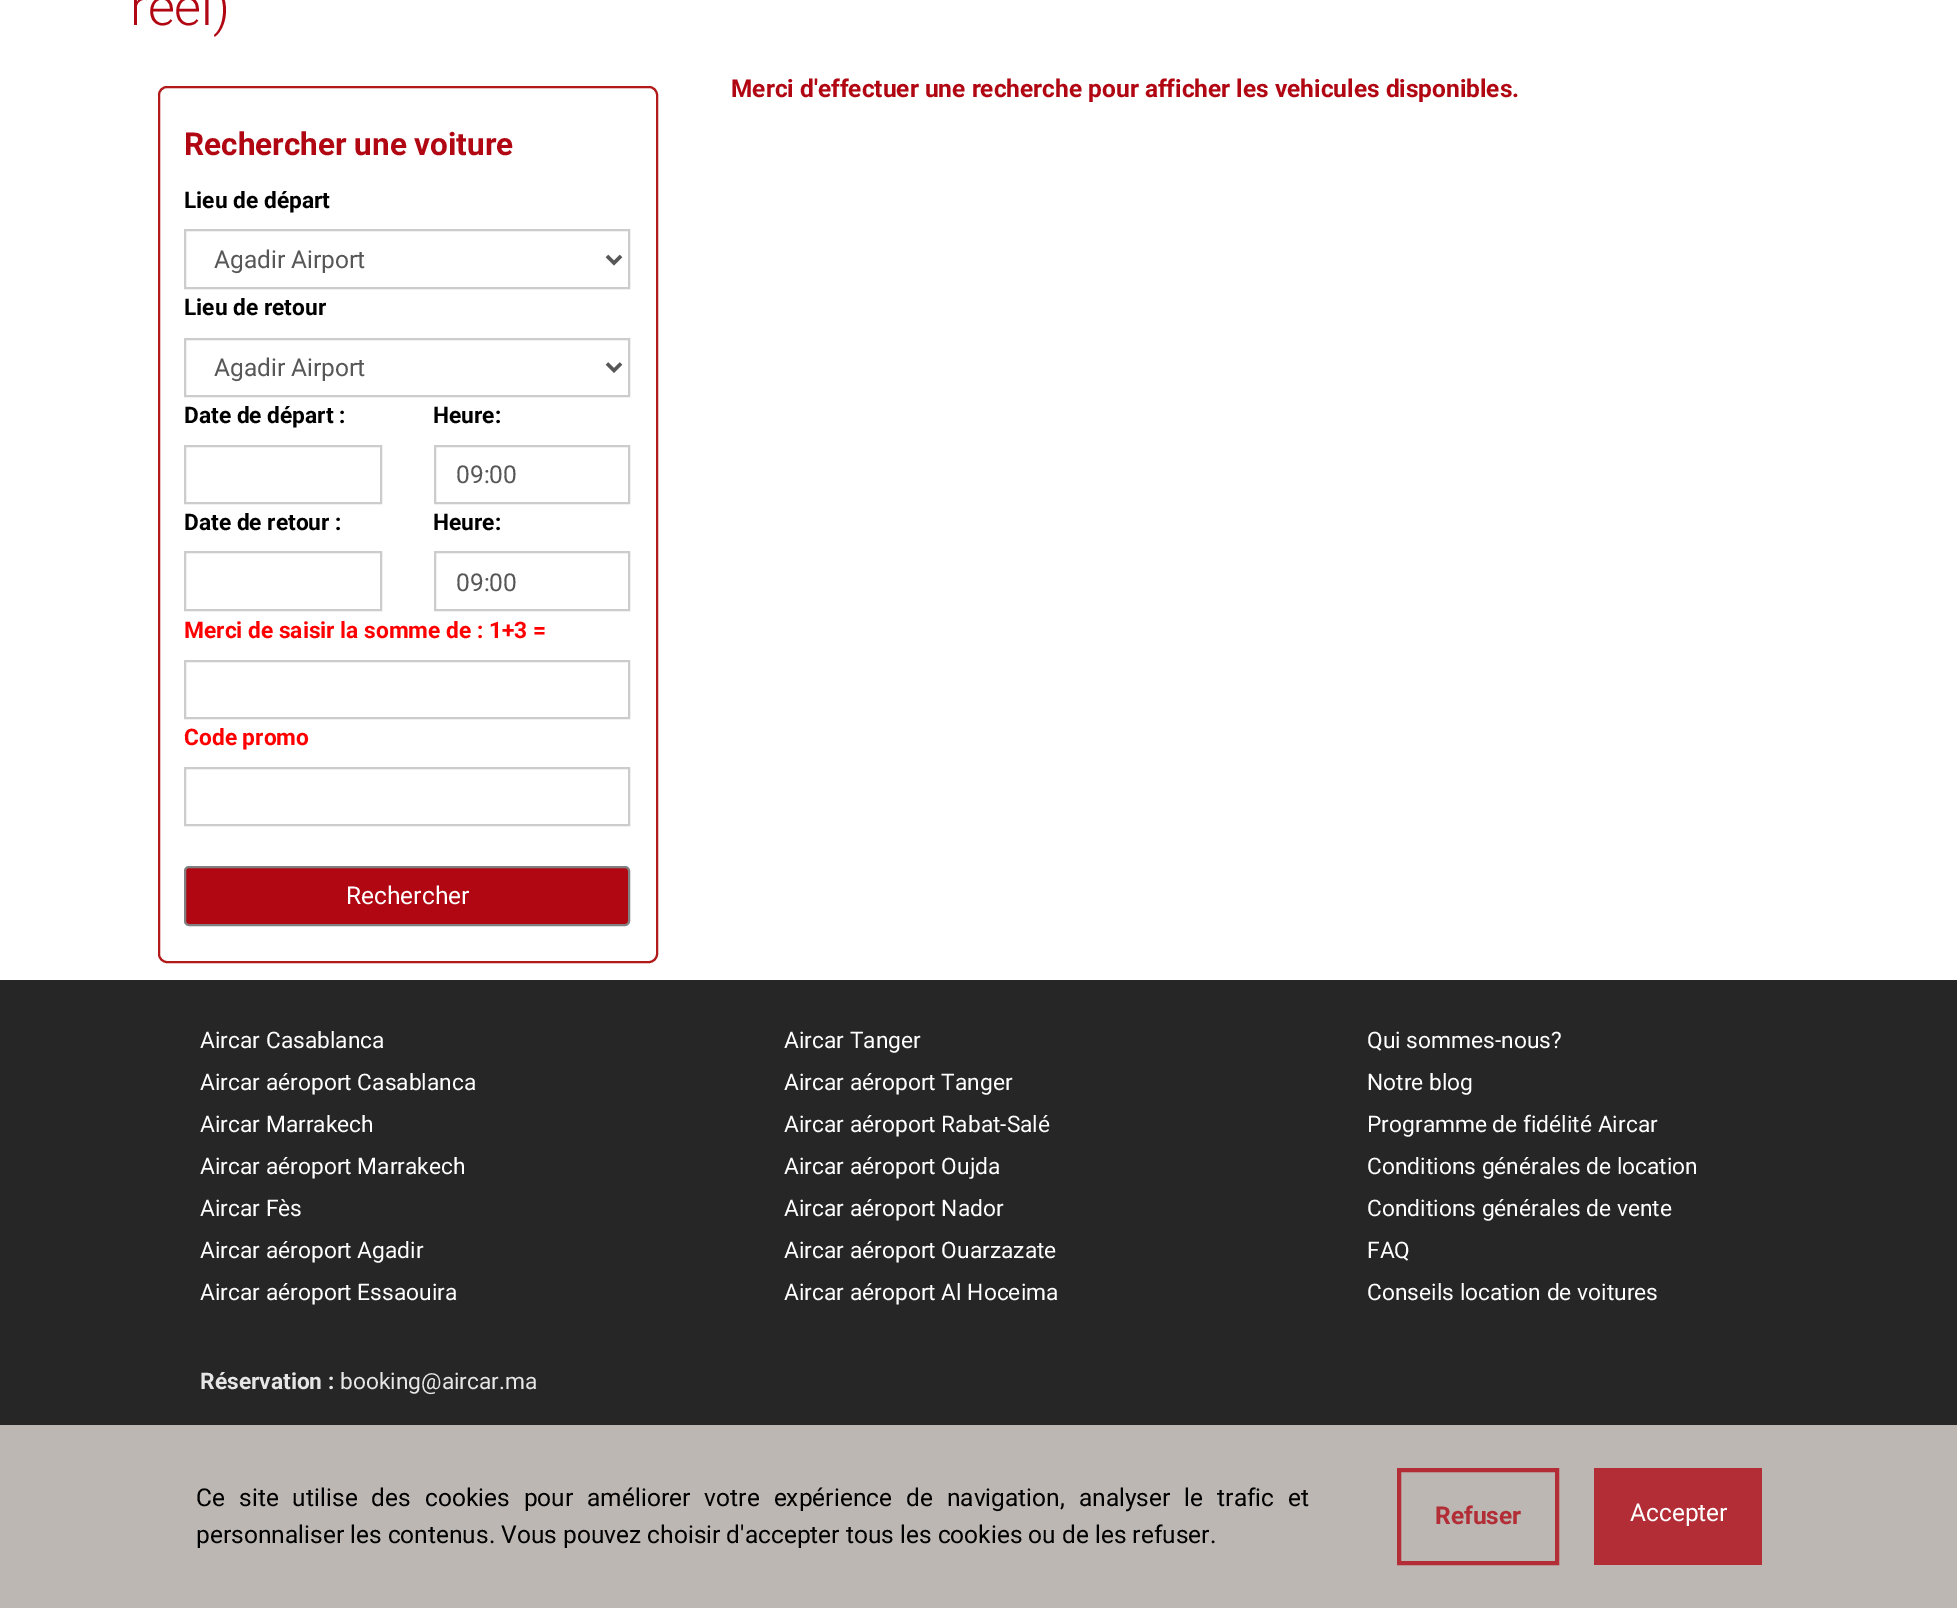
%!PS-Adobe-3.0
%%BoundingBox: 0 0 1957 1608
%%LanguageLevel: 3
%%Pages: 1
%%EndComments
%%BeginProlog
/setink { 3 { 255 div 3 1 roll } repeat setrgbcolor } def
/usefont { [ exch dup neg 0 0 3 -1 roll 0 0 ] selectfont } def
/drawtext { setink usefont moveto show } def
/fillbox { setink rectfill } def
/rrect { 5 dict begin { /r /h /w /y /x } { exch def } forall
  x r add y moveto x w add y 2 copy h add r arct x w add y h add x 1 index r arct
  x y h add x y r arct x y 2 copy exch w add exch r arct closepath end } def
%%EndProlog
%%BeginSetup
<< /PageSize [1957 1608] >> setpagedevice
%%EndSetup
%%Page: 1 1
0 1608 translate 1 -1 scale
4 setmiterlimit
0 0 1957 1608 255 255 255 fillbox
(réel\)) 130 25 /Roboto-Light 52 177 7 19 drawtext
(Merci d'effectuer une recherche pour afficher les vehicules disponibles.) 731 97 /Roboto-Bold 24.5 177 7 19 drawtext
178 25 25 setink
2 setlinewidth
159 87 498 875 8 rrect stroke
(Rechercher une voiture) 184 155 /Roboto-Bold 31.5 177 7 19 drawtext
(Lieu de départ) 184 208 /Roboto-Bold 22.75 0 0 0 drawtext
204 204 204 setink
185 230 444 58 rectstroke
88 87 87 setink
3.5 setlinewidth
607 256 moveto 614 263 lineto 621 256 lineto stroke
(Agadir Airport) 214 268 /Roboto-Regular 24.5 88 87 87 drawtext
(Lieu de retour) 184 315 /Roboto-Bold 22.75 0 0 0 drawtext
204 204 204 setink
2 setlinewidth
185 339 444 57 rectstroke
88 87 87 setink
3.5 setlinewidth
607 363.5 moveto 614 370.5 lineto 621 363.5 lineto stroke
(Agadir Airport) 214 376 /Roboto-Regular 24.5 88 87 87 drawtext
(Date de départ :) 184 423 /Roboto-Bold 22.75 0 0 0 drawtext
204 204 204 setink
2 setlinewidth
185 446 196 57 rectstroke
(Heure:) 433 423 /Roboto-Bold 22.75 0 0 0 drawtext
204 204 204 setink
435 446 194 57 rectstroke
(09:00) 456 483 /Roboto-Regular 24.5 88 87 87 drawtext
(Date de retour :) 184 530 /Roboto-Bold 22.75 0 0 0 drawtext
204 204 204 setink
185 552 196 58 rectstroke
(Heure:) 433 530 /Roboto-Bold 22.75 0 0 0 drawtext
204 204 204 setink
435 552 194 58 rectstroke
(09:00) 456 591 /Roboto-Regular 24.5 88 87 87 drawtext
(Merci de saisir la somme de : 1+3 =) 184 638 /Roboto-Bold 22.75 255 0 0 drawtext
204 204 204 setink
185 661 444 57 rectstroke
(Code promo) 184 745 /Roboto-Bold 22.75 255 0 0 drawtext
204 204 204 setink
185 768 444 57 rectstroke
177 7 19 setink
185 867 444 58 4 rrect gsave fill grestore
128 128 128 setink
stroke
(Rechercher) 346 904 /Roboto-Regular 24.5 255 255 255 drawtext
0 980 1957 445 38 38 38 fillbox
(Aircar Casablanca) 200 1048 /Roboto-Regular 22.75 255 255 255 drawtext
(Aircar aéroport Casablanca) 200 1090 /Roboto-Regular 22.75 255 255 255 drawtext
(Aircar Marrakech) 200 1132 /Roboto-Regular 22.75 255 255 255 drawtext
(Aircar aéroport Marrakech) 200 1174 /Roboto-Regular 22.75 255 255 255 drawtext
(Aircar Fès) 200 1216 /Roboto-Regular 22.75 255 255 255 drawtext
(Aircar aéroport Agadir) 200 1258 /Roboto-Regular 22.75 255 255 255 drawtext
(Aircar aéroport Essaouira) 200 1300 /Roboto-Regular 22.75 255 255 255 drawtext
(Aircar Tanger) 784 1048 /Roboto-Regular 22.75 255 255 255 drawtext
(Aircar aéroport Tanger) 784 1090 /Roboto-Regular 22.75 255 255 255 drawtext
(Aircar aéroport Rabat-Salé) 784 1132 /Roboto-Regular 22.75 255 255 255 drawtext
(Aircar aéroport Oujda) 784 1174 /Roboto-Regular 22.75 255 255 255 drawtext
(Aircar aéroport Nador) 784 1216 /Roboto-Regular 22.75 255 255 255 drawtext
(Aircar aéroport Ouarzazate) 784 1258 /Roboto-Regular 22.75 255 255 255 drawtext
(Aircar aéroport Al Hoceima) 784 1300 /Roboto-Regular 22.75 255 255 255 drawtext
(Qui sommes-nous?) 1367 1048 /Roboto-Regular 22.75 255 255 255 drawtext
(Notre blog) 1367 1090 /Roboto-Regular 22.75 255 255 255 drawtext
(Programme de fidélité Aircar) 1367 1132 /Roboto-Regular 22.75 255 255 255 drawtext
(Conditions générales de location) 1367 1174 /Roboto-Regular 22.75 255 255 255 drawtext
(Conditions générales de vente) 1367 1216 /Roboto-Regular 22.75 255 255 255 drawtext
(FAQ) 1367 1258 /Roboto-Regular 22.75 255 255 255 drawtext
(Conseils location de voitures) 1367 1300 /Roboto-Regular 22.75 255 255 255 drawtext
(Réservation :) 200 1389 /Roboto-Bold 22.75 230 230 230 drawtext
(booking@aircar.ma) 340 1389 /Roboto-Regular 22.75 230 230 230 drawtext
0 1425 1957 183 188 183 179 fillbox
/Roboto-Regular 24.5 usefont
0 0 0 setink
196 1506 moveto 7.9 0 32 (Ce site utilise des cookies pour améliorer votre expérience de navigation, analyser le trafic et) widthshow
(personnaliser les contenus. Vous pouvez choisir d'accepter tous les cookies ou de les refuser.) 196 1543 /Roboto-Regular 24.5 0 0 0 drawtext
178 45 54 setink
4 setlinewidth
1399 1470 158 93 rectstroke
(Refuser) 1435 1524 /Roboto-Bold 24.5 178 45 54 drawtext
1594 1468 168 97 178 45 54 fillbox
(Accepter) 1630 1521 /Roboto-Regular 24.5 255 255 255 drawtext
showpage
%%EOF
